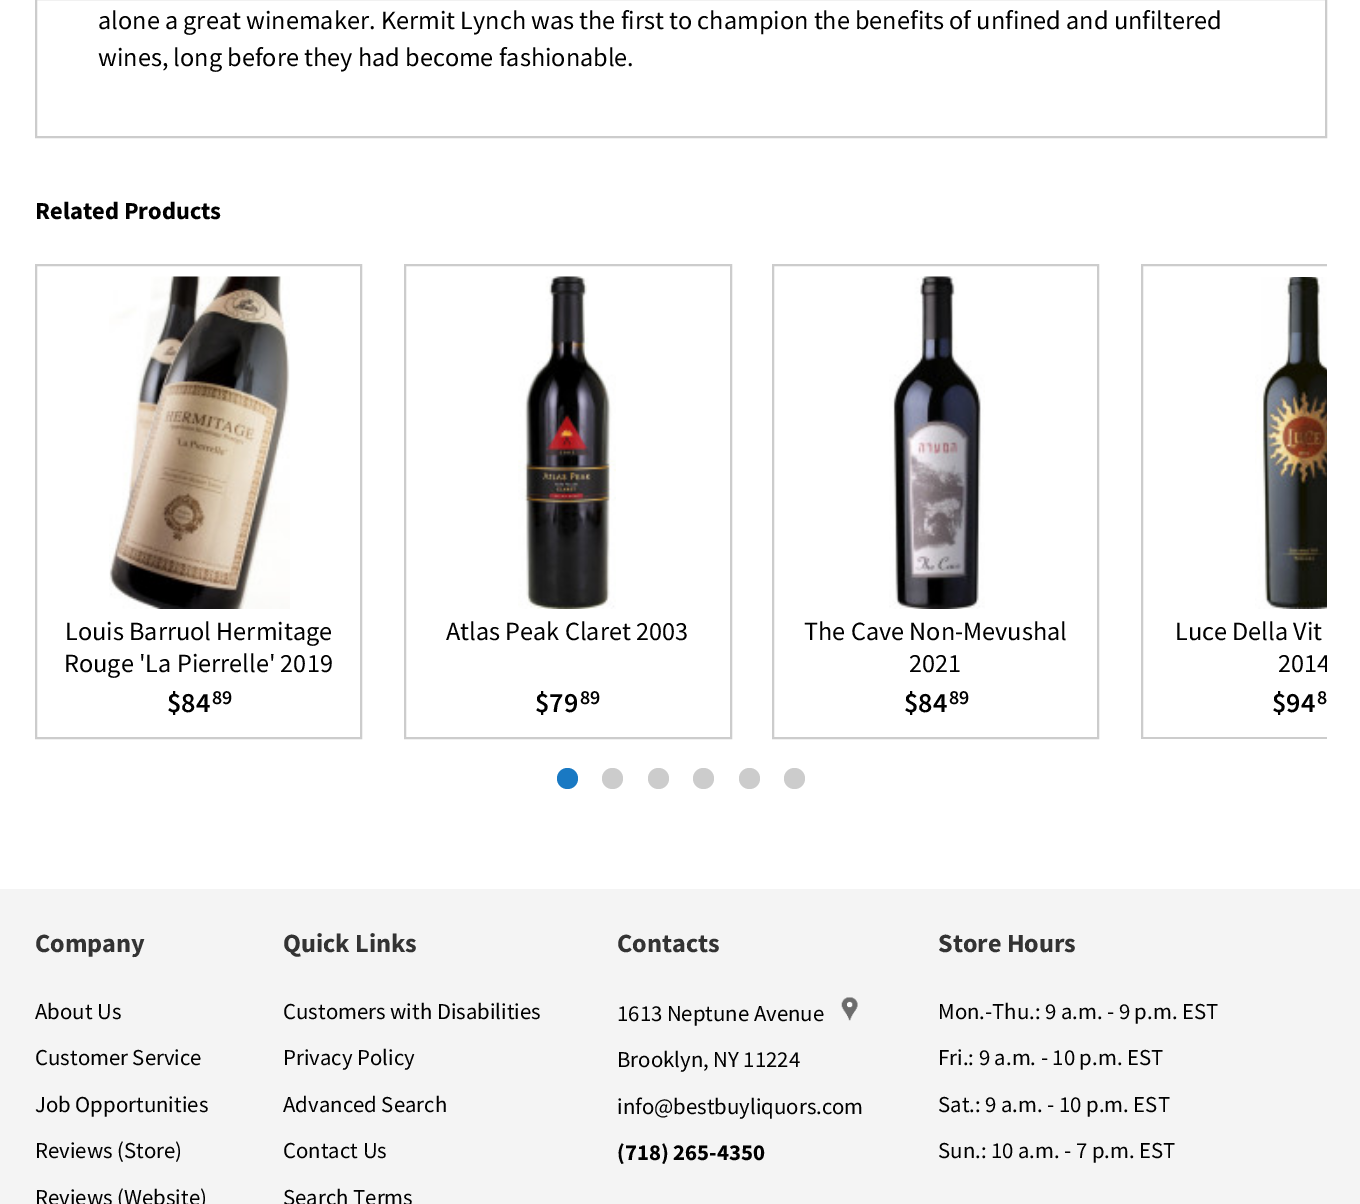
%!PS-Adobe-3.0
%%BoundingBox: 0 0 1360 1204
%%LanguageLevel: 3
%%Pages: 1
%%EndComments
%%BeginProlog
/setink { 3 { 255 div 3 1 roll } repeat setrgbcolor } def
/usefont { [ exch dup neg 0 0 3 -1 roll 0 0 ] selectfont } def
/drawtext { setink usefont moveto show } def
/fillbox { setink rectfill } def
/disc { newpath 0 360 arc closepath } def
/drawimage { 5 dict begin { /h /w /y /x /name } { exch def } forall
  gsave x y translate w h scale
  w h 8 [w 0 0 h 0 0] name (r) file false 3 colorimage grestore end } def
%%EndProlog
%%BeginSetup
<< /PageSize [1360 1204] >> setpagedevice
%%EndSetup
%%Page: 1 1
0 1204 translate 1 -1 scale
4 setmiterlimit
0 0 1360 1204 255 255 255 fillbox
204 204 204 setink
2 setlinewidth
36 -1 1290 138 rectstroke
(alone a great winemaker. Kermit Lynch was the first to champion the benefits of unfined and unfiltered) 98 29 /SourceSansPro-Regular 26.25 0 0 0 drawtext
(wines, long before they had become fashionable.) 98 66 /SourceSansPro-Regular 26.25 0 0 0 drawtext
(Related Products) 35 219 /SourceSansPro-Bold 24.5 0 0 0 drawtext
204 204 204 setink
36 265 325 473 rectstroke
(assets/img1.rgb) 109 276 181 333 drawimage
(Louis Barruol Hermitage) 65 640 /SourceSansPro-Regular 26.25 0 0 0 drawtext
(Rouge 'La Pierrelle' 2019) 64 672 /SourceSansPro-Regular 26.25 0 0 0 drawtext
($84) 167 712 /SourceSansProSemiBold-SemiBold 28 0 0 0 drawtext
(89) 212 704 /SourceSansProSemiBold-SemiBold 20 0 0 0 drawtext
204 204 204 setink
405 265 326 473 rectstroke
(assets/img2.rgb) 518 276 98 333 drawimage
(Atlas Peak Claret 2003) 446 640 /SourceSansPro-Regular 26.25 0 0 0 drawtext
($79) 535 712 /SourceSansProSemiBold-SemiBold 28 0 0 0 drawtext
(89) 580 704 /SourceSansProSemiBold-SemiBold 20 0 0 0 drawtext
204 204 204 setink
773 265 325 473 rectstroke
(assets/img3.rgb) 889 276 96 333 drawimage
(The Cave Non-Mevushal) 804 640 /SourceSansPro-Regular 26.25 0 0 0 drawtext
(2021) 909 672 /SourceSansPro-Regular 26.25 0 0 0 drawtext
($84) 904 712 /SourceSansProSemiBold-SemiBold 28 0 0 0 drawtext
(89) 949 704 /SourceSansProSemiBold-SemiBold 20 0 0 0 drawtext
gsave
35 264 1292 475 rectclip
204 204 204 setink
1142 265 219 473 rectstroke
grestore
(assets/img4.rgb) 1255 277 72 332 drawimage
(Luce Della Vit) 1175 640 /SourceSansPro-Regular 26.25 0 0 0 drawtext
gsave
1157 616 170 68 rectclip
(2014) 1278 672 /SourceSansPro-Regular 26.25 0 0 0 drawtext
grestore
($94) 1272 712 /SourceSansProSemiBold-SemiBold 28 0 0 0 drawtext
(8) 1317 704 /SourceSansProSemiBold-SemiBold 20 0 0 0 drawtext
25 121 195 setink
567.5 778.5 10.5 disc fill
204 204 204 setink
612.5 778.5 10.5 disc fill
658.5 778.5 10.5 disc fill
703.5 778.5 10.5 disc fill
749.5 778.5 10.5 disc fill
794.5 778.5 10.5 disc fill
0 889 1360 315 244 244 244 fillbox
(Company) 35 952 /SourceSansPro-Bold 26.25 51 51 51 drawtext
(About Us) 35 1019 /SourceSansPro-Regular 22.75 0 0 0 drawtext
(Customer Service) 35 1065 /SourceSansPro-Regular 22.75 0 0 0 drawtext
(Job Opportunities) 35 1112 /SourceSansPro-Regular 22.75 0 0 0 drawtext
(Reviews \(Store\)) 35 1158 /SourceSansPro-Regular 22.75 0 0 0 drawtext
(Reviews \(Website\)) 35 1205 /SourceSansPro-Regular 22.75 0 0 0 drawtext
(Quick Links) 283 952 /SourceSansPro-Bold 26.25 51 51 51 drawtext
(Customers with Disabilities) 283 1019 /SourceSansPro-Regular 22.75 0 0 0 drawtext
(Privacy Policy) 283 1065 /SourceSansPro-Regular 22.75 0 0 0 drawtext
(Advanced Search) 283 1112 /SourceSansPro-Regular 22.75 0 0 0 drawtext
(Contact Us) 283 1158 /SourceSansPro-Regular 22.75 0 0 0 drawtext
(Search Terms) 283 1205 /SourceSansPro-Regular 22.75 0 0 0 drawtext
(Contacts) 617 952 /SourceSansPro-Bold 26.25 51 51 51 drawtext
(1613 Neptune Avenue) 617 1021 /SourceSansPro-Regular 22.75 0 0 0 drawtext
(assets/img5.rgb) 841 997 17 24 drawimage
(Brooklyn, NY 11224) 617 1067 /SourceSansPro-Regular 22.75 0 0 0 drawtext
(info@bestbuyliquors.com) 617 1114 /SourceSansPro-Regular 22.75 0 0 0 drawtext
(\(718\) 265-4350) 617 1160 /SourceSansPro-Bold 22.75 0 0 0 drawtext
(Store Hours) 938 952 /SourceSansPro-Bold 26.25 51 51 51 drawtext
(Mon.-Thu.: 9 a.m. - 9 p.m. EST) 938 1019 /SourceSansPro-Regular 22.75 0 0 0 drawtext
(Fri.: 9 a.m. - 10 p.m. EST) 938 1065 /SourceSansPro-Regular 22.75 0 0 0 drawtext
(Sat.: 9 a.m. - 10 p.m. EST) 938 1112 /SourceSansPro-Regular 22.75 0 0 0 drawtext
(Sun.: 10 a.m. - 7 p.m. EST) 938 1158 /SourceSansPro-Regular 22.75 0 0 0 drawtext
showpage
%%EOF
